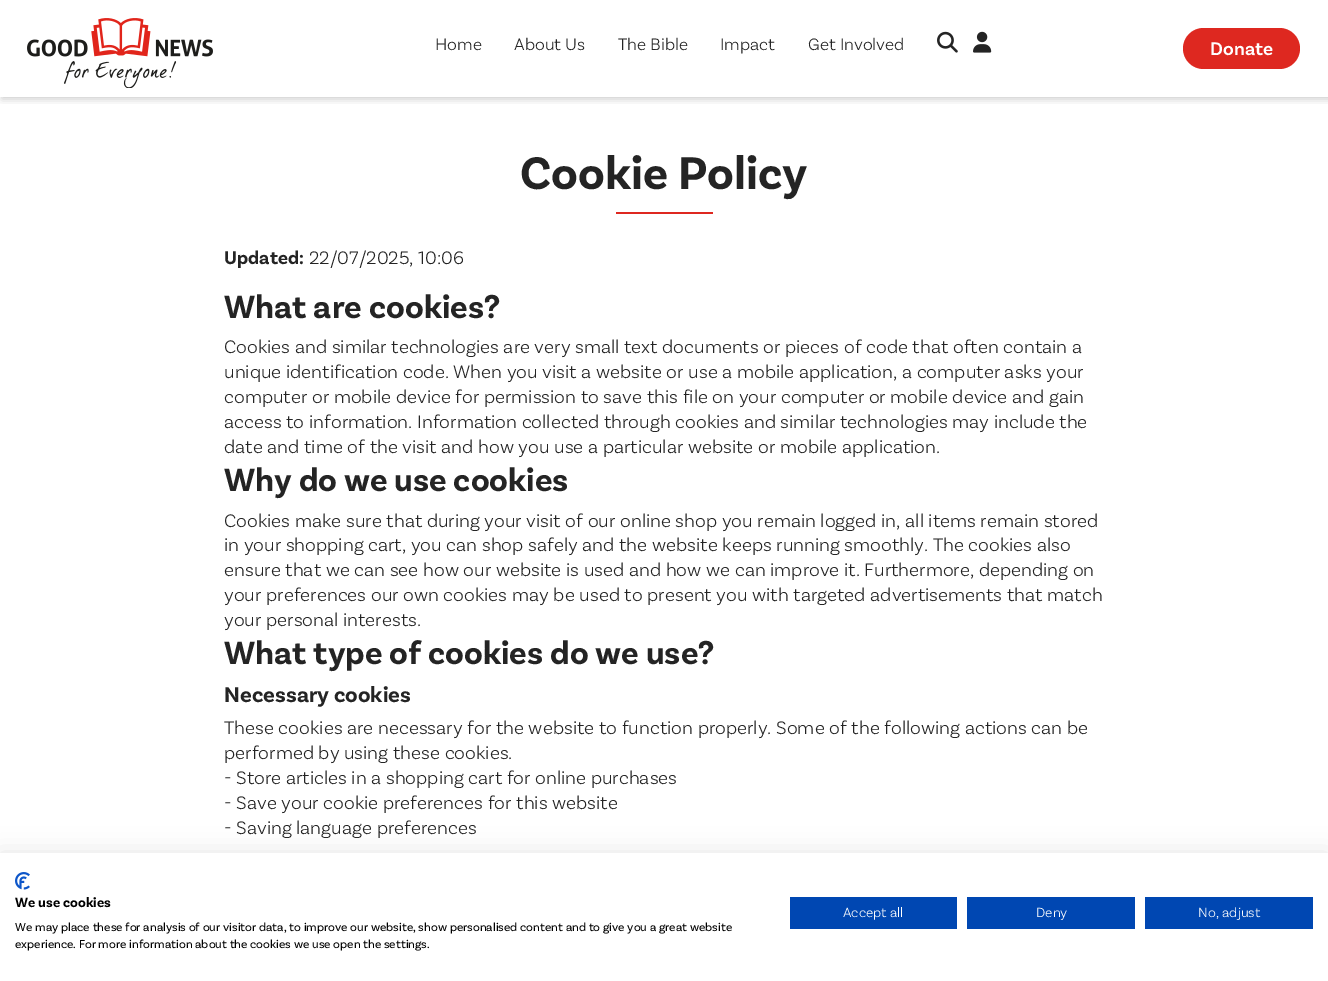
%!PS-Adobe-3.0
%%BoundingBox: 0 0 1328 981
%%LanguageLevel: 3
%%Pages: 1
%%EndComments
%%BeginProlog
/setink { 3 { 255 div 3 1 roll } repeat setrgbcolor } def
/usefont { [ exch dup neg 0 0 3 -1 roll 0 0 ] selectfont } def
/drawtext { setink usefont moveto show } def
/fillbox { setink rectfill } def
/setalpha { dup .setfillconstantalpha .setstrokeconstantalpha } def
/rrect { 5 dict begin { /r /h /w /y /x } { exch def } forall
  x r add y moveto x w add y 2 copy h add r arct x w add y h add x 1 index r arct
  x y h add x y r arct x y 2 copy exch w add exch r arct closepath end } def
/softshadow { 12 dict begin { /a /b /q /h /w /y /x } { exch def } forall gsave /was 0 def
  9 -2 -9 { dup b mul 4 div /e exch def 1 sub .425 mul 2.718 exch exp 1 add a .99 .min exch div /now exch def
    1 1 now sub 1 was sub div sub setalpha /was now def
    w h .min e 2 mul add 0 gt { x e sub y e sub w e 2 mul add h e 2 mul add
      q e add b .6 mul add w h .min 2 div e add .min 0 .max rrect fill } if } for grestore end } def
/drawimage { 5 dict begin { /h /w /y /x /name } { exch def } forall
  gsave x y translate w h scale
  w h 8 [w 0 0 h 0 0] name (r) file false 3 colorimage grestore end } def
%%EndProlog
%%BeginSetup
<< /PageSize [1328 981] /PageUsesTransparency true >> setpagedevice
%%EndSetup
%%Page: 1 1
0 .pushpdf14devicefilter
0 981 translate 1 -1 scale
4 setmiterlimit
0 0 1328 981 255 255 255 fillbox
gsave
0 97 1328 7 rectclip
0 0 0 setink
2 2 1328 97 0 4 0.2 softshadow
grestore
(assets/img1.rgb) 27 18 186 70 drawimage
(Home) 435 50 /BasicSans-Light 17.5 36 36 36 drawtext
(About Us) 514 50 /BasicSans-Light 17.5 36 36 36 drawtext
(The Bible) 618 50 /BasicSans-Light 17.5 36 36 36 drawtext
(Impact) 720 50 /BasicSans-Light 17.5 36 36 36 drawtext
(Get Involved) 808 50 /BasicSans-Light 17.5 36 36 36 drawtext
(assets/img2.rgb) 937 31 21 22 drawimage
(assets/img3.rgb) 973 31 19 22 drawimage
222 40 32 setink
1183 28 117 41 20.5 rrect fill
(Donate) 1210 55 /BasicSans-SemiBold 19.2 255 255 255 drawtext
(Cookie Policy) 520 189 /BasicSans-Bold 48 36 36 36 drawtext
616 212 97 2 222 40 32 fillbox
(Updated:) 224 264 /BasicSans-Bold 19.2 36 36 36 drawtext
(22/07/2025, 10:06) 309 264 /BasicSans-Light 19.2 36 36 36 drawtext
(What are cookies?) 224 318 /BasicSans-Bold 33.6 36 36 36 drawtext
(Cookies and similar technologies are very small text documents or pieces of code that often contain a) 224 353 /BasicSans-Light 19.2 36 36 36 drawtext
(unique identification code. When you visit a website or use a mobile application, a computer asks your) 224 378 /BasicSans-Light 19.2 36 36 36 drawtext
(computer or mobile device for permission to save this file on your computer or mobile device and gain) 224 403 /BasicSans-Light 19.2 36 36 36 drawtext
(access to information. Information collected through cookies and similar technologies may include the) 224 428 /BasicSans-Light 19.2 36 36 36 drawtext
(date and time of the visit and how you use a particular website or mobile application.) 224 453 /BasicSans-Light 19.2 36 36 36 drawtext
(Why do we use cookies) 224 491 /BasicSans-Bold 33.6 36 36 36 drawtext
(Cookies make sure that during your visit of our online shop you remain logged in, all items remain stored) 224 527 /BasicSans-Light 19.2 36 36 36 drawtext
(in your shopping cart, you can shop safely and the website keeps running smoothly. The cookies also) 224 551 /BasicSans-Light 19.2 36 36 36 drawtext
(ensure that we can see how our website is used and how we can improve it. Furthermore, depending on) 224 576 /BasicSans-Light 19.2 36 36 36 drawtext
(your preferences our own cookies may be used to present you with targeted advertisements that match) 224 601 /BasicSans-Light 19.2 36 36 36 drawtext
(your personal interests.) 224 626 /BasicSans-Light 19.2 36 36 36 drawtext
(What type of cookies do we use?) 224 664 /BasicSans-Bold 33.6 36 36 36 drawtext
(Necessary cookies) 224 702 /BasicSans-Bold 22.5 36 36 36 drawtext
(These cookies are necessary for the website to function properly. Some of the following actions can be) 224 734 /BasicSans-Light 19.2 36 36 36 drawtext
(performed by using these cookies.) 224 759 /BasicSans-Light 19.2 36 36 36 drawtext
(- Store articles in a shopping cart for online purchases) 224 784 /BasicSans-Light 19.2 36 36 36 drawtext
(- Save your cookie preferences for this website) 224 809 /BasicSans-Light 19.2 36 36 36 drawtext
(- Saving language preferences) 224 834 /BasicSans-Light 19.2 36 36 36 drawtext
0 0 0 setink
0 853 1328 128 0 12 0.1 softshadow
0 853 1328 128 255 255 255 fillbox
(assets/img4.rgb) 15 872 15 18 drawimage
(We use cookies) 15 907 /BasicSans-Bold 14 0 0 0 drawtext
(We may place these for analysis of our visitor data, to improve our website, show personalised content and to give you a great website) 15 931 /BasicSans-Regular 12 0 0 0 drawtext
(experience. For more information about the cookies we use open the settings.) 15 948 /BasicSans-Regular 12 0 0 0 drawtext
790 897 167 32 0 71 178 fillbox
(Accept all) 843 917 /BasicSans-Light 14 255 255 255 drawtext
967 897 168 32 0 71 178 fillbox
(Deny) 1036 917 /BasicSans-Light 14 255 255 255 drawtext
1145 897 168 32 0 71 178 fillbox
(No, adjust) 1198 917 /BasicSans-Light 14 255 255 255 drawtext
.poppdf14devicefilter showpage
%%EOF
